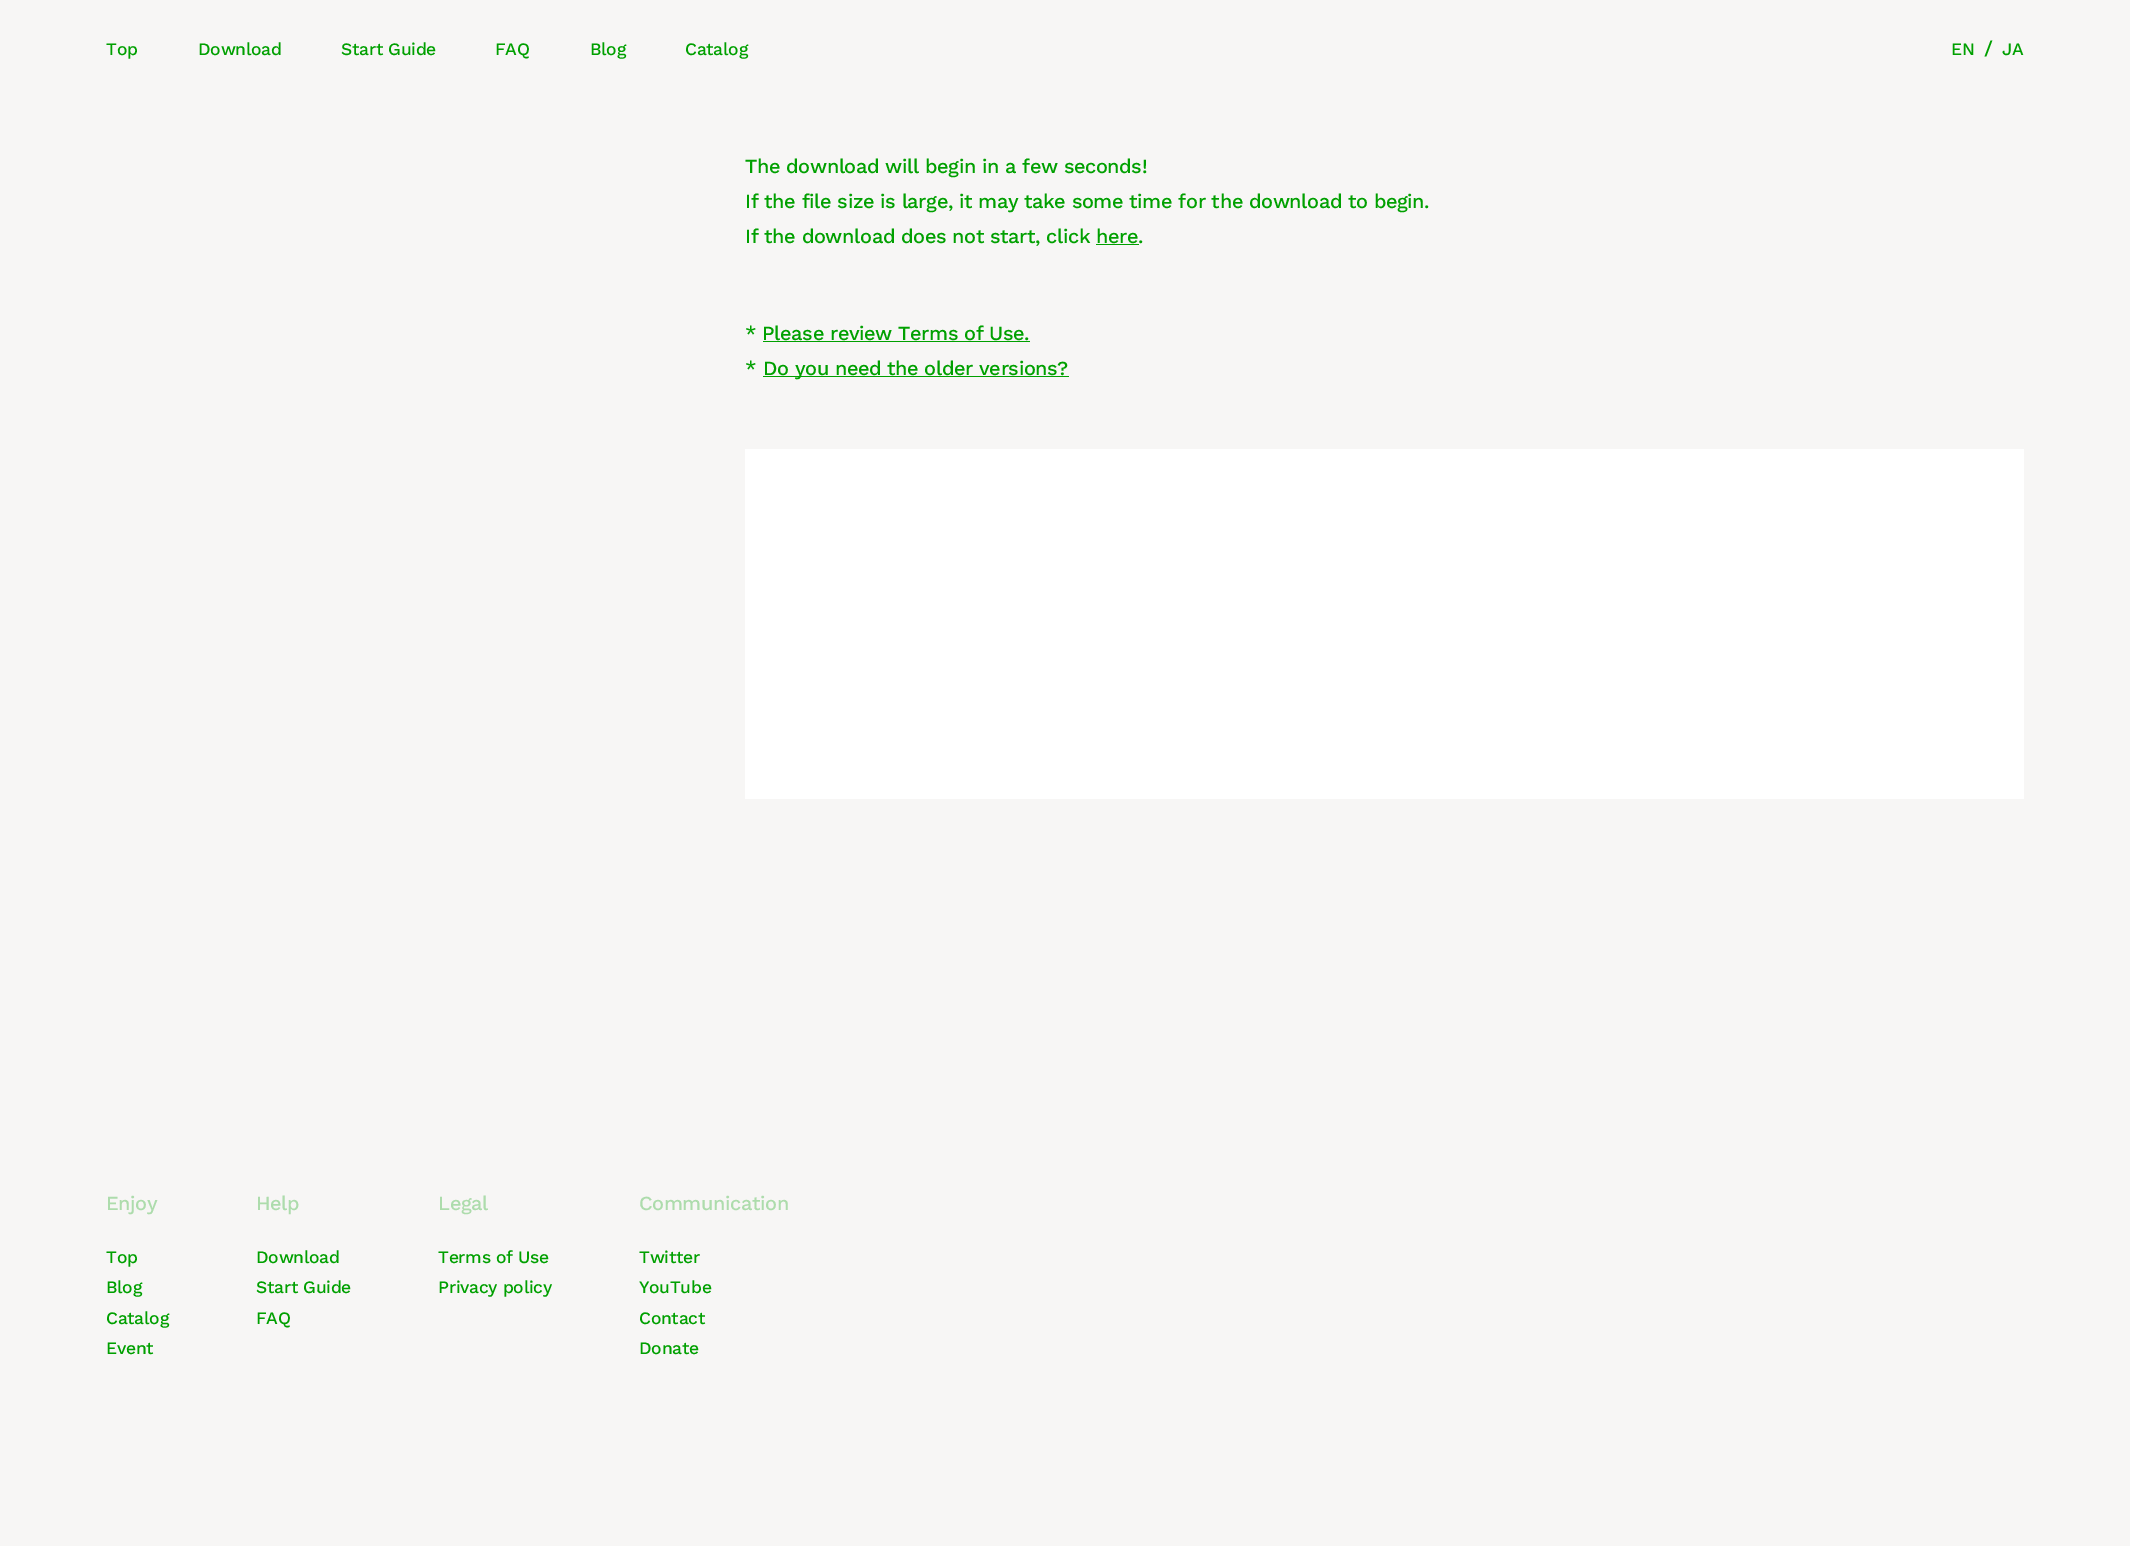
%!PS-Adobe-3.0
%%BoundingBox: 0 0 2130 1546
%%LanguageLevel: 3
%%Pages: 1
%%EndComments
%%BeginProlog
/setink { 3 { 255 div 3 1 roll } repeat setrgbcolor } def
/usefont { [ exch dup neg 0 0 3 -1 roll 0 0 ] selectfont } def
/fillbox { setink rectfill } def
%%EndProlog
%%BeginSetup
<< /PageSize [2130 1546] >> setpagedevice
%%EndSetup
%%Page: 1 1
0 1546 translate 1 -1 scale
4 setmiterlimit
0 0 2130 1546 247 246 245 fillbox
/WorkSans-Medium 17.5 usefont
0 160 0 setink
106 55 moveto -0.3 0 (Top) ashow
198 55 moveto -0.3 0 (Download) ashow
341 55 moveto -0.3 0 (Start Guide) ashow
495 55 moveto -0.3 0 (FAQ) ashow
590 55 moveto -0.3 0 (Blog) ashow
685 55 moveto -0.3 0 (Catalog) ashow
1951 55 moveto -0.4 0 (EN) ashow
/WorkSans-Medium 20 usefont
1984 55 moveto -0.4 0 (/) ashow
/WorkSans-Medium 17.5 usefont
2002 55 moveto -0.4 0 (JA) ashow
/WorkSans-Medium 20 usefont
745 173 moveto -0.4 0 (The download will begin in a few seconds!) ashow
745 208 moveto -0.4 0 (If the file size is large, it may take some time for the download to begin.) ashow
745 243 moveto -0.4 0 (If the download does not start, click here.) ashow
1096 244 43 1 0 160 0 fillbox
745 340 moveto -0.4 0 (* Please review Terms of Use.) ashow
763 341 267 1 0 160 0 fillbox
745 375 moveto -0.4 0 (*) ashow
763 376 306 1 0 160 0 fillbox
763 375 moveto -0.4 0 (Do you need the older versions?) ashow
745 449 1279 350 255 255 255 fillbox
173 220 172 setink
106 1210 moveto -0.4 0 (Enjoy) ashow
/WorkSans-Medium 17.5 usefont
0 160 0 setink
106 1263 moveto -0.3 0 (Top) ashow
106 1293 moveto -0.3 0 (Blog) ashow
106 1324 moveto -0.3 0 (Catalog) ashow
106 1354 moveto -0.3 0 (Event) ashow
/WorkSans-Medium 20 usefont
173 220 172 setink
256 1210 moveto -0.4 0 (Help) ashow
/WorkSans-Medium 17.5 usefont
0 160 0 setink
256 1263 moveto -0.3 0 (Download) ashow
256 1293 moveto -0.3 0 (Start Guide) ashow
256 1324 moveto -0.3 0 (FAQ) ashow
/WorkSans-Medium 20 usefont
173 220 172 setink
438 1210 moveto -0.4 0 (Legal) ashow
/WorkSans-Medium 17.5 usefont
0 160 0 setink
438 1263 moveto -0.3 0 (Terms of Use) ashow
438 1293 moveto -0.3 0 (Privacy policy) ashow
/WorkSans-Medium 20 usefont
173 220 172 setink
639 1210 moveto -0.4 0 (Communication) ashow
/WorkSans-Medium 17.5 usefont
0 160 0 setink
639 1263 moveto -0.3 0 (Twitter) ashow
639 1293 moveto -0.3 0 (YouTube) ashow
639 1324 moveto -0.3 0 (Contact) ashow
639 1354 moveto -0.3 0 (Donate) ashow
showpage
%%EOF
